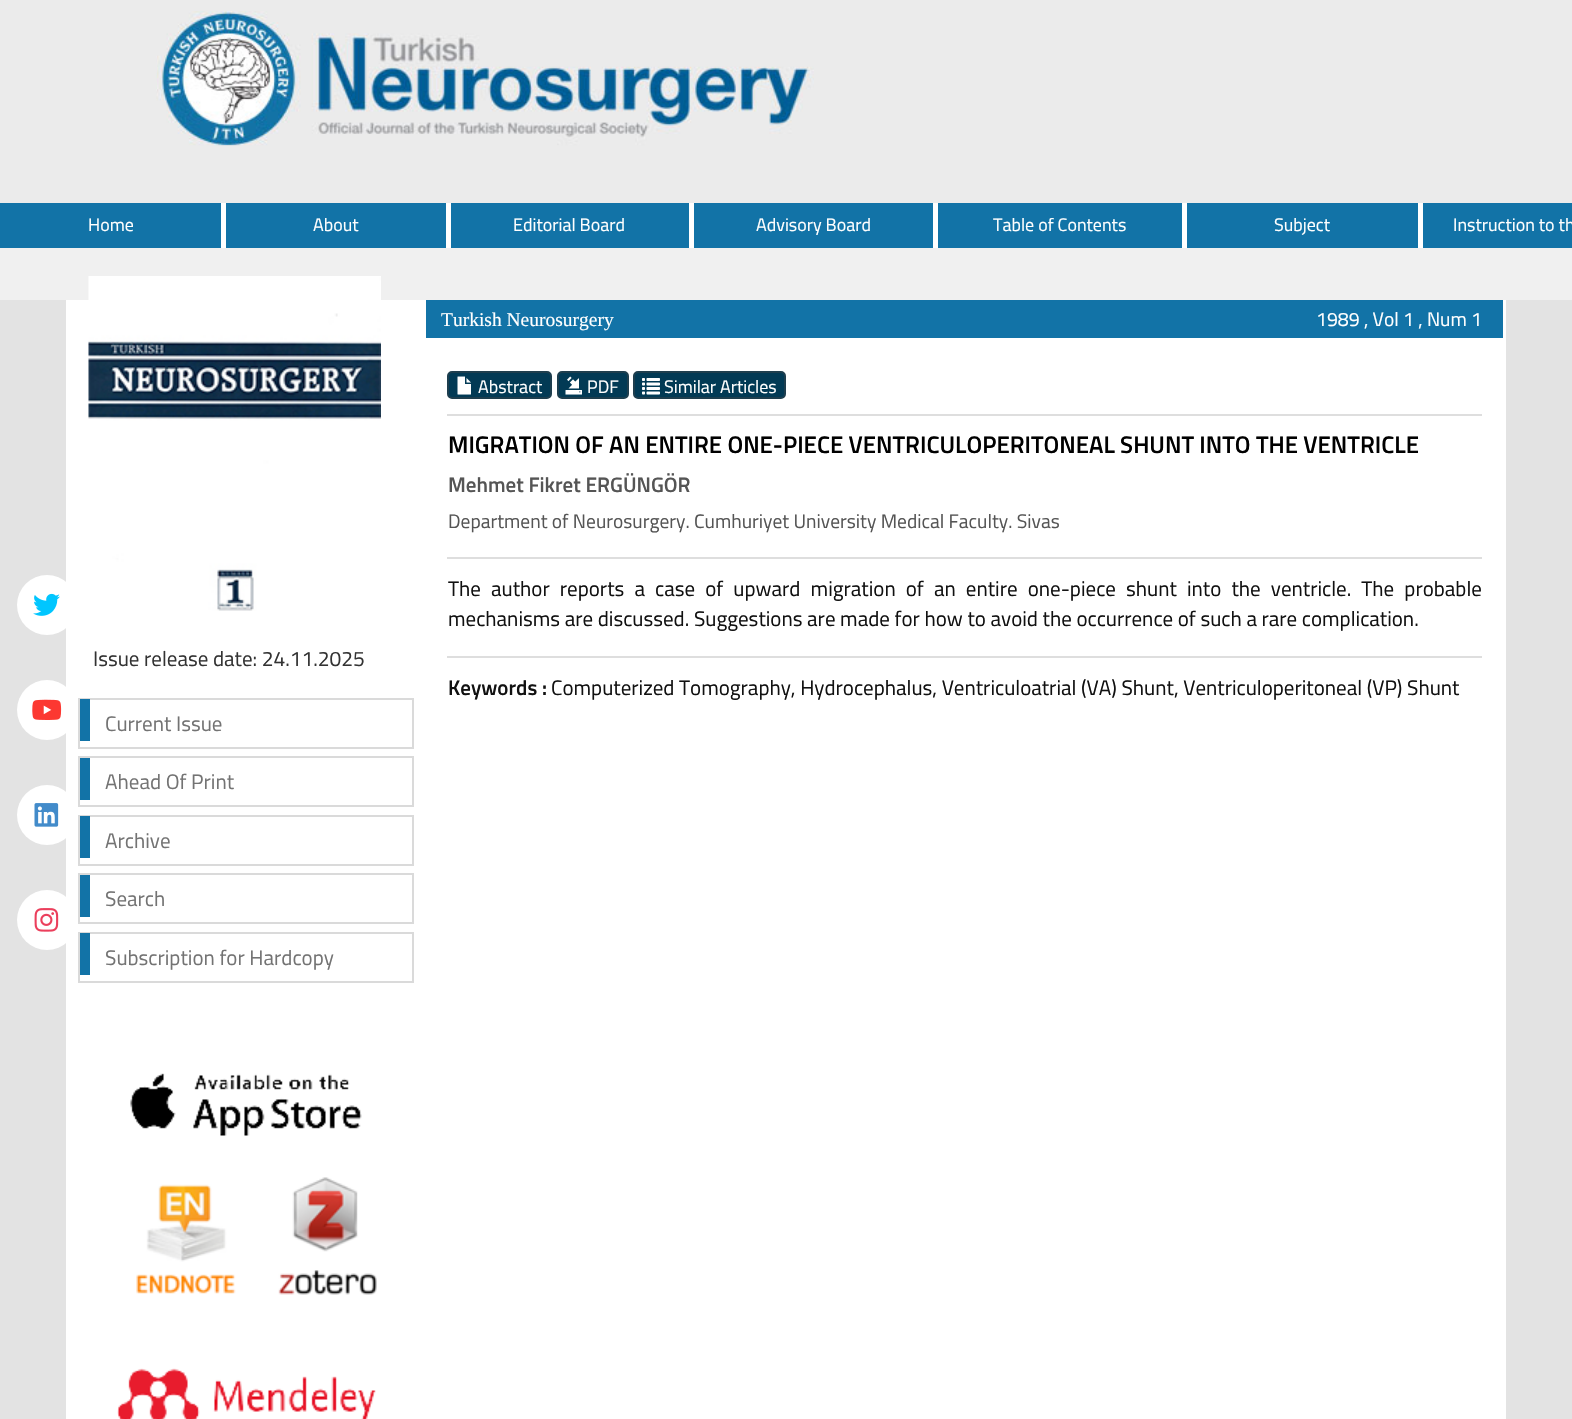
void draw(SkCanvas* canvas) {
    SkPaint paint;
    paint.setAntiAlias(true);
    auto face = [&](const char* family, int weight, float size, bool italic = false) {
        SkFontStyle style(weight, SkFontStyle::kNormal_Width,
            italic ? SkFontStyle::kItalic_Slant : SkFontStyle::kUpright_Slant);
        SkFont result(fontMgr->matchFamilyStyle(family, style), size);
        result.setSubpixel(true);
        return result;
    };
    auto write = [&](const char* s, float x, float y, const SkFont& font, SkColor color) {
        SkPaint ink(SkColor4f::FromColor(color));
        ink.setAntiAlias(true);
        canvas->drawString(s, x, y, font, ink);
    };
    auto writeSpaced = [&](const char* s, float x, float y, const SkFont& font, const SkPaint& ink, float letter, float word) {
        std::vector<SkGlyphID> glyphs(font.countText(s, strlen(s), SkTextEncoding::kUTF8));
        std::vector<float> xs(glyphs.size());
        font.textToGlyphs(s, strlen(s), SkTextEncoding::kUTF8, glyphs);
        font.getXPos(glyphs, xs, x);
        float extra = 0;
        for (size_t i = 0; i < glyphs.size(); i++) {
            xs[i] += extra;
            extra += letter + word * (glyphs[i] == font.unicharToGlyph(' '));
        }
        canvas->drawTextBlob(SkTextBlob::MakeFromPosHGlyphs(glyphs, xs, y, font), 0, 0, ink);
    };
    auto block = [&](float x, float y, float w, float h, SkColor color) {
        SkPaint ink(SkColor4f::FromColor(color));
        ink.setAntiAlias(true);
        canvas->drawRect(SkRect::MakeXYWH(x, y, w, h), ink);
    };
    auto paste = [&](const char* path, float x, float y, float w, float h) {
        auto image = SkImages::DeferredFromEncodedData(SkData::MakeFromFileName(path));
        canvas->drawImageRect(image, SkRect::MakeXYWH(x, y, w, h), SkSamplingOptions());
    };
    canvas->clear(SkColorSetRGB(227, 227, 227));
    block(0, 0, 1572, 203, SkColorSetRGB(235, 235, 235));
    paste("pic1.png", 156, 11, 658, 135);
    block(0, 203, 1572, 45, SkColorSetRGB(18, 115, 167));
    block(221, 203, 5, 45, SK_ColorWHITE);
    auto kFont1 = face("Titillium Web", 400, 18);
    write("Home", 88, 231, kFont1, SK_ColorWHITE);
    block(446, 203, 5, 45, SK_ColorWHITE);
    write("About", 313, 231, kFont1, SK_ColorWHITE);
    block(689, 203, 5, 45, SK_ColorWHITE);
    write("Editorial Board", 513, 231, kFont1, SK_ColorWHITE);
    block(933, 203, 5, 45, SK_ColorWHITE);
    write("Advisory Board", 756, 231, kFont1, SK_ColorWHITE);
    block(1182, 203, 5, 45, SK_ColorWHITE);
    write("Table of Contents", 993, 231, kFont1, SK_ColorWHITE);
    block(1418, 203, 5, 45, SK_ColorWHITE);
    write("Subject", 1274, 231, kFont1, SK_ColorWHITE);
    write("Instruction to th", 1453, 231, kFont1, SK_ColorWHITE);
    block(0, 248, 1572, 52, SkColorSetRGB(240, 240, 240));
    block(66, 300, 1440, 1119, SK_ColorWHITE);
    paint.setColor(SK_ColorWHITE);
    canvas->drawCircle(47, 605, 30, paint);
    paste("pic2.png", 33, 593, 27, 23);
    canvas->drawCircle(47, 710, 30, paint);
    paste("pic3.png", 32, 699, 30, 21);
    canvas->drawCircle(47, 815, 30, paint);
    paste("pic4.png", 34, 803, 25, 24);
    canvas->drawCircle(47, 920, 30, paint);
    paste("pic5.png", 34, 908, 25, 24);
    block(426, 300, 1077, 38, SkColorSetRGB(18, 115, 167));
    auto kFont2 = face("Liberation Serif", 400, 19.5f);
    write("Turkish Neurosurgery", 441, 326, kFont2, SK_ColorWHITE);
    auto kFont3 = face("Titillium Web", 400, 19.5f);
    write("1989 , Vol 1 , Num 1", 1316, 326, kFont3, SK_ColorWHITE);
    paint.setColor(SkColorSetRGB(2, 58, 85));
    canvas->drawRoundRect(SkRect::MakeXYWH(448, 372, 103, 26), 4, 4, paint);
    paint.setStyle(SkPaint::kStroke_Style);
    paint.setStrokeWidth(2);
    paint.setColor(SkColorSetRGB(30, 62, 78));
    canvas->drawRoundRect(SkRect::MakeXYWH(448, 372, 103, 26), 4, 4, paint);
    paste("pic6.png", 457, 376, 14, 19);
    write("Abstract", 478, 393, kFont1, SK_ColorWHITE);
    paint.setStyle(SkPaint::kFill_Style);
    paint.setColor(SkColorSetRGB(2, 58, 85));
    canvas->drawRoundRect(SkRect::MakeXYWH(558, 372, 70, 26), 4, 4, paint);
    paint.setStyle(SkPaint::kStroke_Style);
    paint.setColor(SkColorSetRGB(30, 62, 78));
    canvas->drawRoundRect(SkRect::MakeXYWH(558, 372, 70, 26), 4, 4, paint);
    paste("pic7.png", 565, 376, 17, 19);
    write("PDF", 587, 393, kFont1, SK_ColorWHITE);
    paint.setStyle(SkPaint::kFill_Style);
    paint.setColor(SkColorSetRGB(2, 58, 85));
    canvas->drawRoundRect(SkRect::MakeXYWH(634, 372, 151, 26), 4, 4, paint);
    paint.setStyle(SkPaint::kStroke_Style);
    paint.setColor(SkColorSetRGB(30, 62, 78));
    canvas->drawRoundRect(SkRect::MakeXYWH(634, 372, 151, 26), 4, 4, paint);
    paste("pic8.png", 642, 378, 18, 17);
    write("Similar Articles", 664, 393, kFont1, SK_ColorWHITE);
    block(447, 414, 1035, 2, SkColorSetRGB(222, 222, 222));
    auto kFont4 = face("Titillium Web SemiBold", 600, 24);
    write("MIGRATION OF AN ENTIRE ONE-PIECE VENTRICULOPERITONEAL SHUNT INTO THE VENTRICLE", 448, 453, kFont4, SK_ColorBLACK);
    auto kFont5 = face("Titillium Web SemiBold", 600, 21);
    write("Mehmet Fikret ERGÜNGÖR", 448, 492, kFont5, SkColorSetRGB(85, 85, 85));
    write("Department of Neurosurgery. Cumhuriyet University Medical Faculty. Sivas", 448, 528, kFont3, SkColorSetRGB(85, 85, 85));
    block(447, 557, 1035, 2, SkColorSetRGB(222, 222, 222));
    auto kFont6 = face("Titillium Web", 400, 21);
    paint.setStyle(SkPaint::kFill_Style);
    paint.setColor(SkColorSetRGB(17, 17, 17));
    writeSpaced("The author reports a case of upward migration of an entire one-piece shunt into the ventricle. The probable", 448, 596, kFont6, paint, 0, 5.5f);
    write("mechanisms are discussed. Suggestions are made for how to avoid the occurrence of such a rare complication.", 448, 626, kFont6, SkColorSetRGB(17, 17, 17));
    block(447, 656, 1035, 2, SkColorSetRGB(222, 222, 222));
    write("Keywords :", 448, 695, kFont5, SkColorSetRGB(17, 17, 17));
    write("Computerized Tomography, Hydrocephalus, Ventriculoatrial (VA) Shunt, Ventriculoperitoneal (VP) Shunt", 551, 695, kFont6, SkColorSetRGB(17, 17, 17));
    paste("pic9.png", 88, 276, 293, 335);
    write("Issue release date: 24.11.2025", 93, 666, kFont6, SkColorSetRGB(51, 51, 51));
    paint.setStyle(SkPaint::kStroke_Style);
    paint.setColor(SkColorSetRGB(218, 218, 218));
    canvas->drawRect(SkRect::MakeXYWH(79, 699, 334, 49), paint);
    block(80, 699, 10, 42, SkColorSetRGB(18, 115, 167));
    write("Current Issue", 105, 731, kFont6, SkColorSetRGB(115, 115, 115));
    canvas->drawRect(SkRect::MakeXYWH(79, 757, 334, 49), paint);
    block(80, 758, 10, 42, SkColorSetRGB(18, 115, 167));
    write("Ahead Of Print", 105, 789, kFont6, SkColorSetRGB(115, 115, 115));
    canvas->drawRect(SkRect::MakeXYWH(79, 816, 334, 49), paint);
    block(80, 816, 10, 42, SkColorSetRGB(18, 115, 167));
    write("Archive", 105, 848, kFont6, SkColorSetRGB(115, 115, 115));
    canvas->drawRect(SkRect::MakeXYWH(79, 874, 334, 49), paint);
    block(80, 875, 10, 42, SkColorSetRGB(18, 115, 167));
    write("Search", 105, 906, kFont6, SkColorSetRGB(115, 115, 115));
    canvas->drawRect(SkRect::MakeXYWH(79, 933, 334, 49), paint);
    block(80, 933, 10, 42, SkColorSetRGB(18, 115, 167));
    write("Subscription for Hardcopy", 105, 965, kFont6, SkColorSetRGB(115, 115, 115));
    paste("pic10.png", 130, 1073, 232, 63);
    paste("pic11.png", 136, 1184, 100, 110);
    paste("pic12.png", 278, 1177, 99, 118);
    paste("pic13.png", 117, 1368, 259, 51);
}
